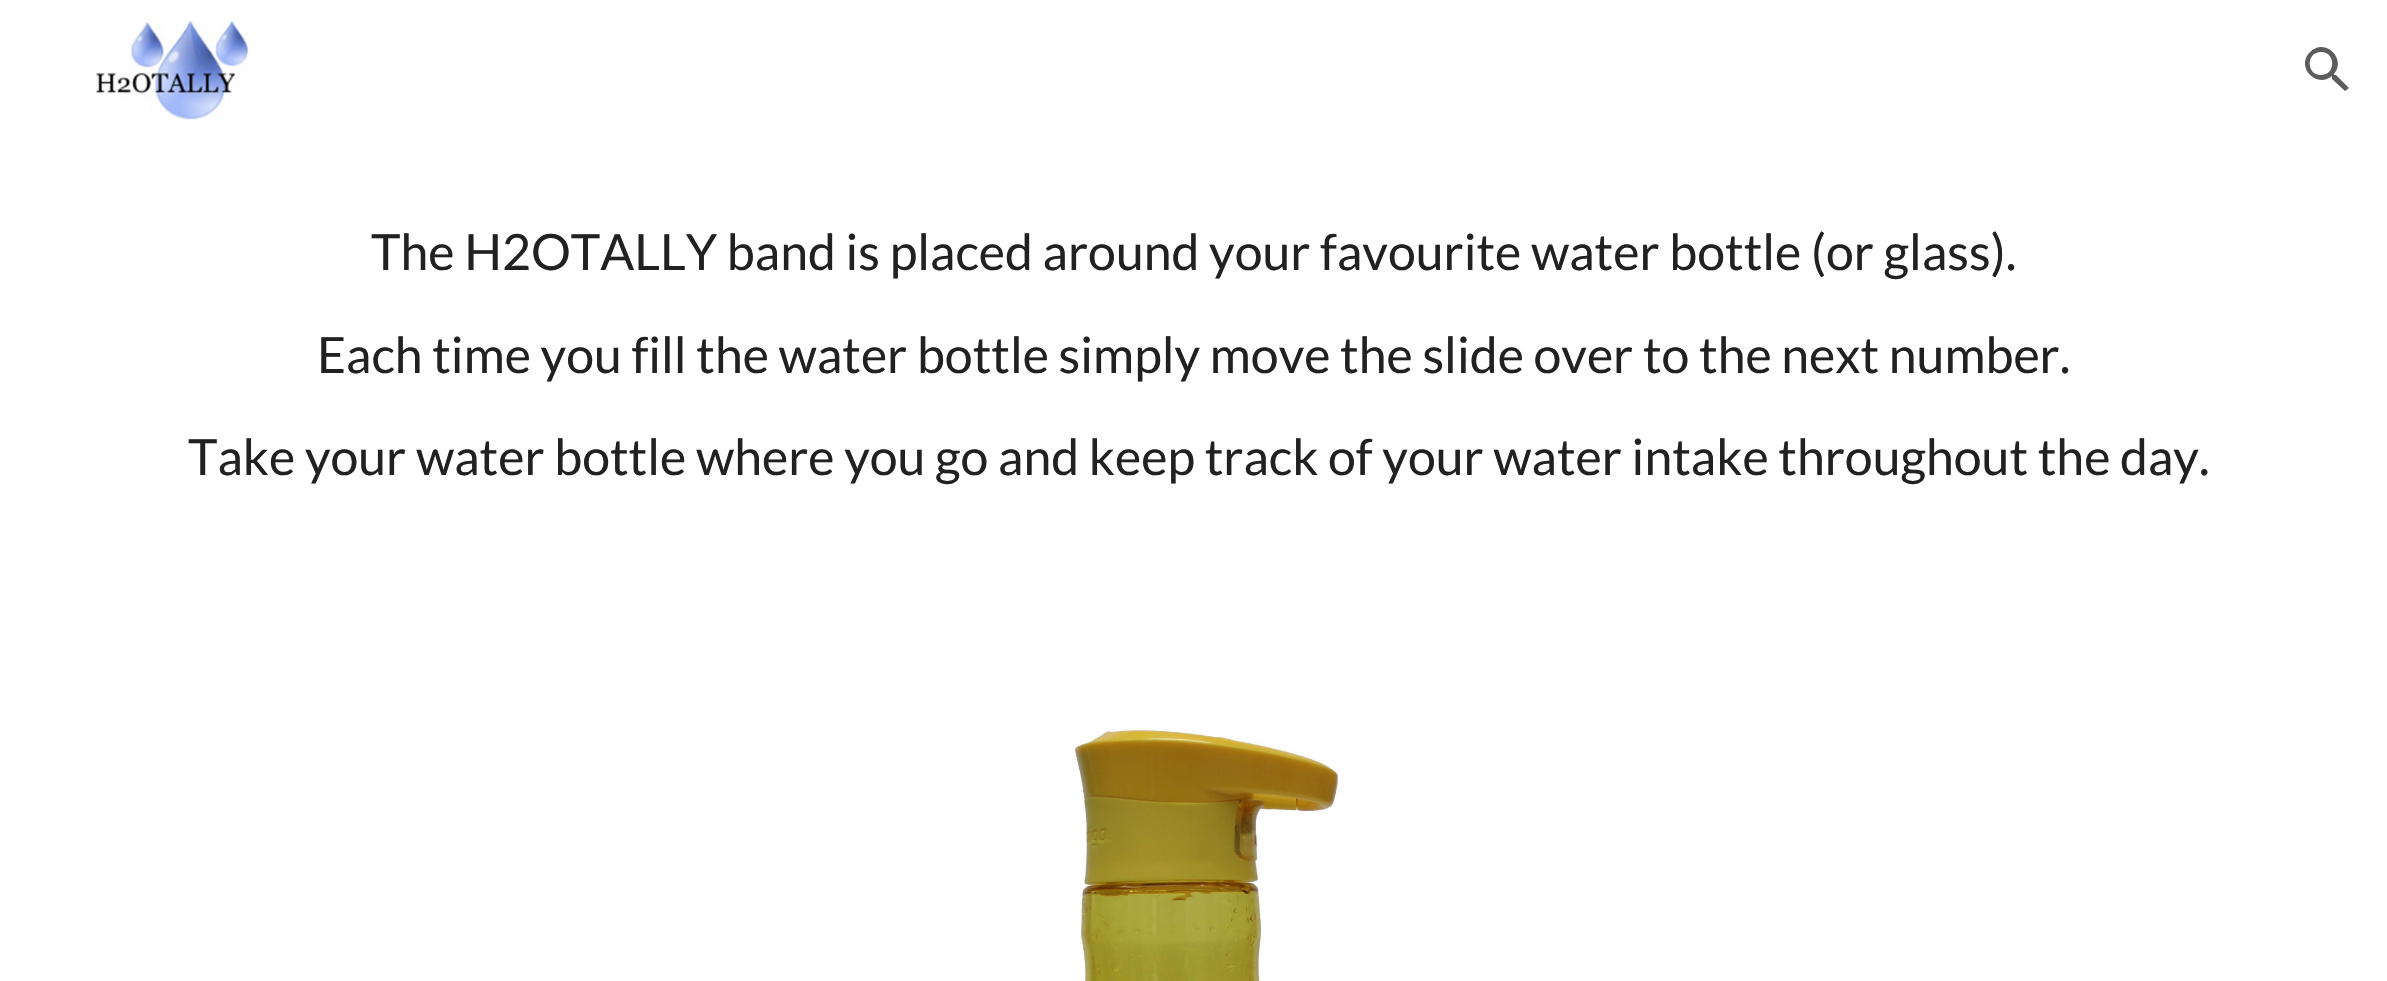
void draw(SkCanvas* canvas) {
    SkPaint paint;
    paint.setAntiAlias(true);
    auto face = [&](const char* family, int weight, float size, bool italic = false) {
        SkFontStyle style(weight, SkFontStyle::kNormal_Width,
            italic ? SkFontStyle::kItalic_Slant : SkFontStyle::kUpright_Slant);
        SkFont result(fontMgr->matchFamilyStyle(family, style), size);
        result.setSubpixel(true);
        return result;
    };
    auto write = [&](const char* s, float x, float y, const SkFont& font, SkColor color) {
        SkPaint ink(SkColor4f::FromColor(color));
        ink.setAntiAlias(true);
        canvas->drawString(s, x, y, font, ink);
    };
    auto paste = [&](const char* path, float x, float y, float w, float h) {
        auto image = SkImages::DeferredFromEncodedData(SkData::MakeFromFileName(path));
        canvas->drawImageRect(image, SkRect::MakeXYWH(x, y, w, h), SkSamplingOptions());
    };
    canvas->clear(SK_ColorWHITE);
    paste("pic1.png", 95, 20, 154, 100);
    paint.setColor(SkColorSetRGB(92, 92, 92));
    canvas->drawPath(SkPathBuilder().moveTo(2336, 75).lineTo(2334, 75).lineTo(2334, 74).cubicTo(2347, 59, 2325, 37, 2310, 52).cubicTo(2295, 67, 2317, 89, 2332, 76).lineTo(2332, 77).lineTo(2332, 79).lineTo(2345, 91).lineTo(2349, 88).close().moveTo(2321, 75).cubicTo(2306, 75, 2306, 52, 2321, 52).cubicTo(2336, 52, 2336, 75, 2321, 75).close().detach(), paint);
    auto kFont1 = face("Lato", 400, 50);
    write("The H2OTALLY band is placed around your favourite water bottle (or glass).", 371, 270, kFont1, SkColorSetRGB(33, 33, 33));
    write("Each time you fill the water bottle simply move the slide over to the next number.", 317, 373, kFont1, SkColorSetRGB(33, 33, 33));
    write("Take your water bottle where you go and keep track of your water intake throughout the day.", 188, 475, kFont1, SkColorSetRGB(33, 33, 33));
    paste("pic2.png", 1074, 728, 265, 253);
}
